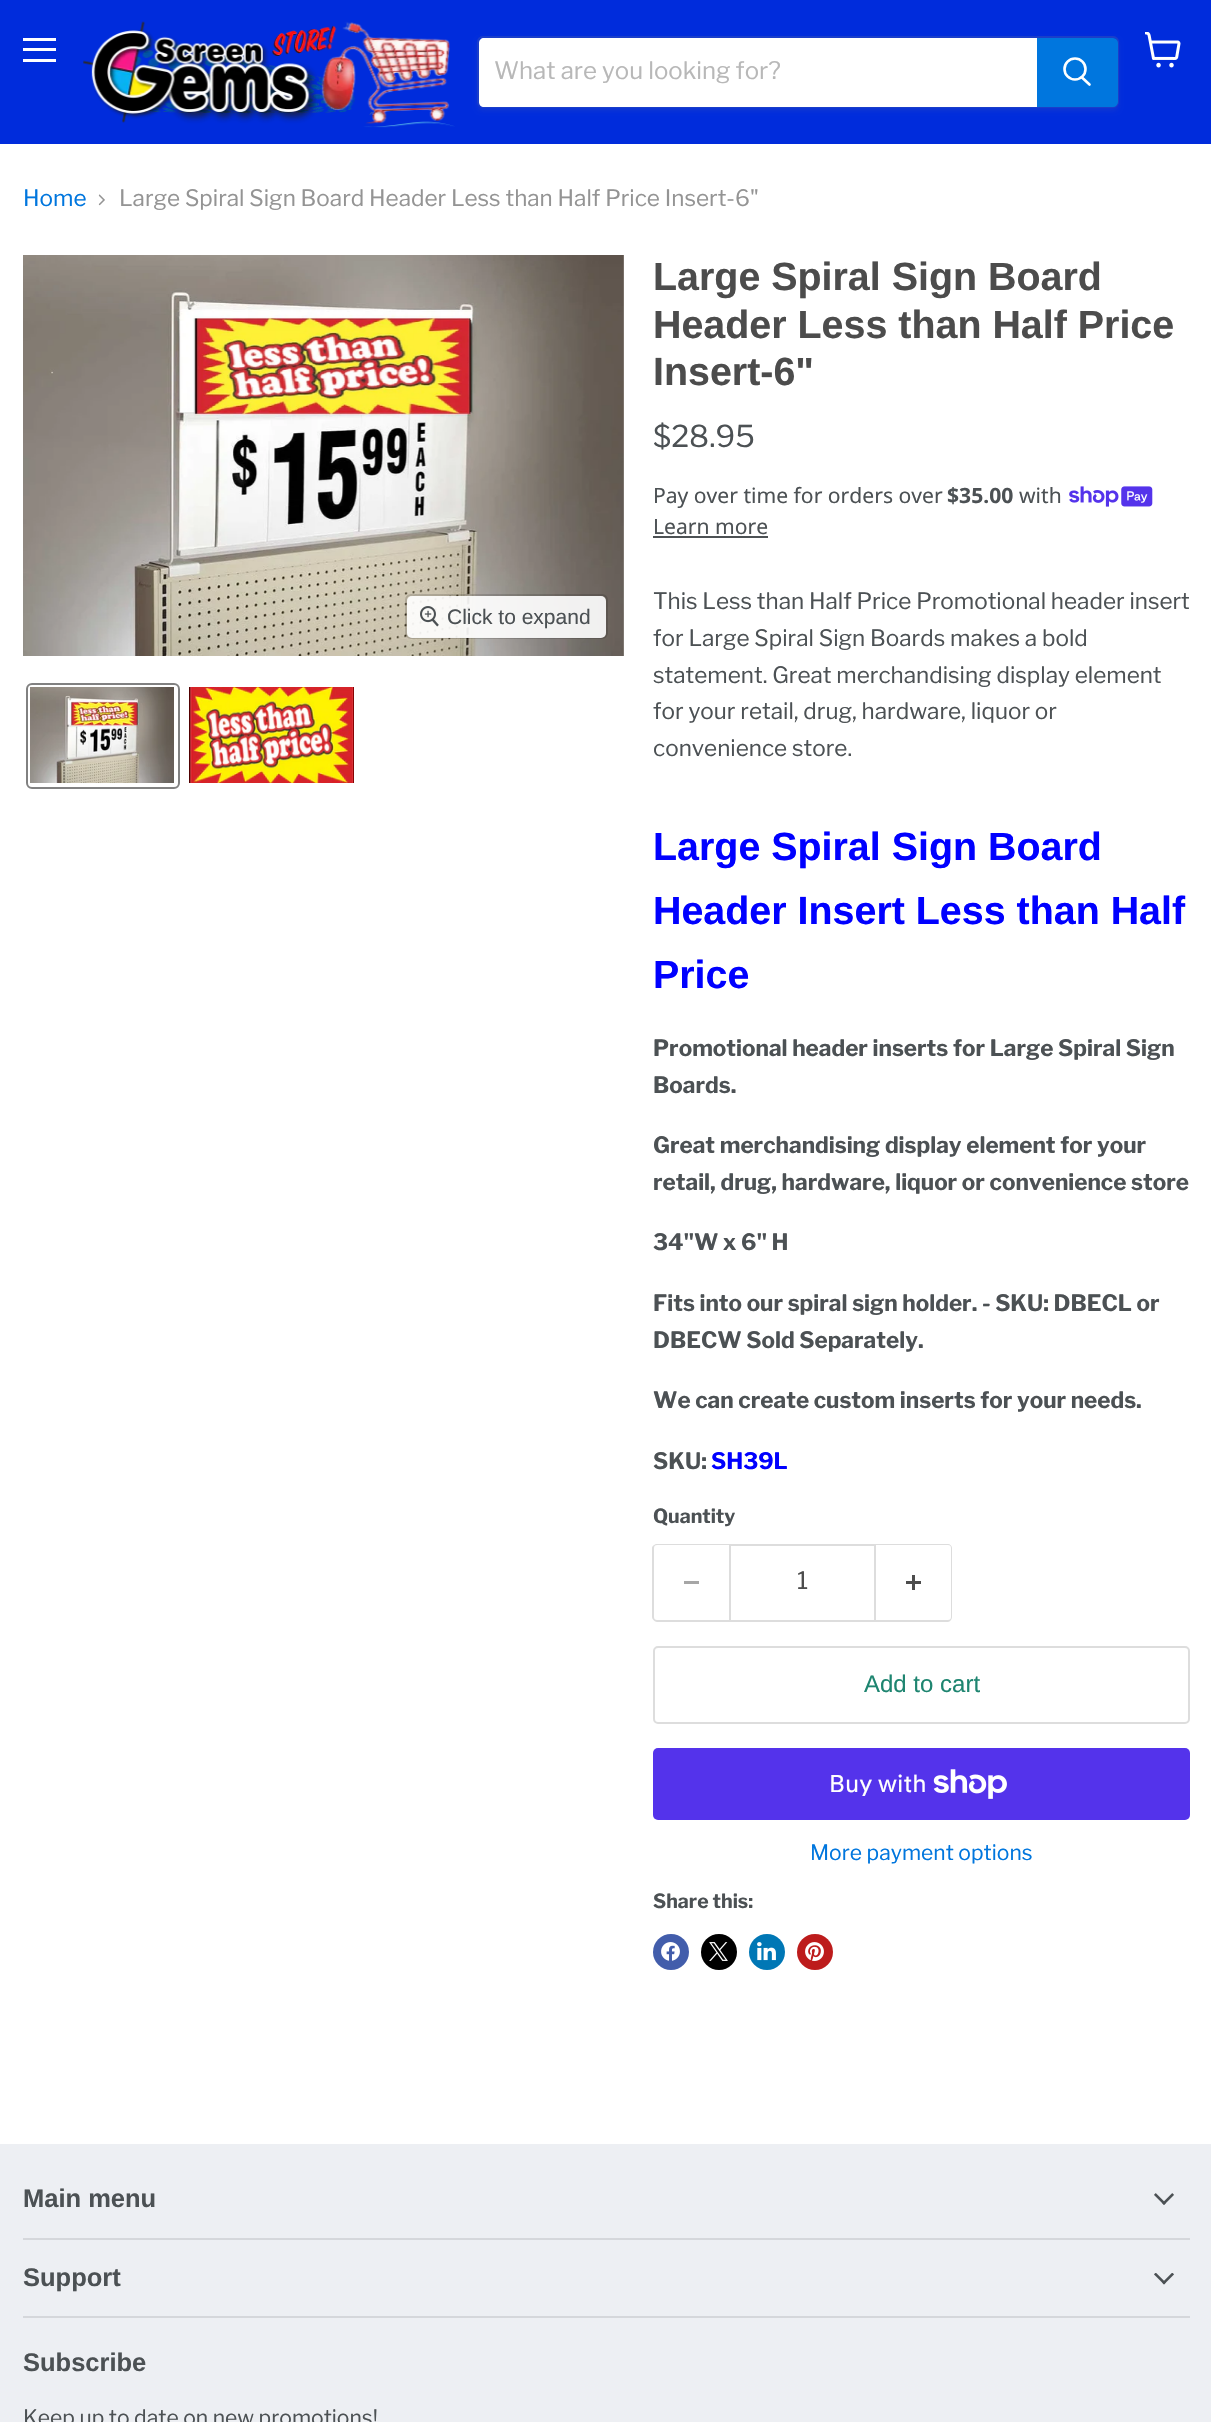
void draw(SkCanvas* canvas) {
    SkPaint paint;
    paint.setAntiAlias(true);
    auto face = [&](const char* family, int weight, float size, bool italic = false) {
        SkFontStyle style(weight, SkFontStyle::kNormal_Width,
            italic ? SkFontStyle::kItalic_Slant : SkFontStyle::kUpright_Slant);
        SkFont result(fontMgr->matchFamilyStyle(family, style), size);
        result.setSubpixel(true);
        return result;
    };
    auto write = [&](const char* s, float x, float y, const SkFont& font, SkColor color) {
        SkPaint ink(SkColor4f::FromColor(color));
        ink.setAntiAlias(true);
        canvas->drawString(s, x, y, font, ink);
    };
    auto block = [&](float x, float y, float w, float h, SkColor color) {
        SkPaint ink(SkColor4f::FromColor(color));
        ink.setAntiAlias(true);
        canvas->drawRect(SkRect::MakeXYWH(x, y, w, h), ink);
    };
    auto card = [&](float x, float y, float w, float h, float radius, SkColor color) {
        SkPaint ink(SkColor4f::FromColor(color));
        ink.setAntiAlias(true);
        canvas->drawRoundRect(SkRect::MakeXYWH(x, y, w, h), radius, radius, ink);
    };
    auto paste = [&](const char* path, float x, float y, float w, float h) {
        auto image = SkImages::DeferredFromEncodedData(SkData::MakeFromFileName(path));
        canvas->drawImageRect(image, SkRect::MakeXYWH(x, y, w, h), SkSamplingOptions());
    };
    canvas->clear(SK_ColorWHITE);
    block(0, 0, 1211, 144, SkColorSetRGB(0, 44, 220));
    block(23, 38, 33, 3, SK_ColorWHITE);
    block(23, 48, 33, 3, SK_ColorWHITE);
    block(23, 59, 33, 3, SK_ColorWHITE);
    paste("pic1.png", 1145, 32, 36, 36);
    paste("pic2.png", 83, 21, 372, 107);
    canvas->save();
    canvas->clipPath(SkPathBuilder(SkPathFillType::kEvenOdd).moveTo(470, 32).lineTo(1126, 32).lineTo(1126, 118).lineTo(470, 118).close().moveTo(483, 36).lineTo(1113, 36).cubicTo(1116.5f, 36, 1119, 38.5f, 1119, 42).lineTo(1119, 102).cubicTo(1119, 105.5f, 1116.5f, 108, 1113, 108).lineTo(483, 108).cubicTo(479.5f, 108, 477, 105.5f, 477, 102).lineTo(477, 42).cubicTo(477, 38.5f, 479.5f, 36, 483, 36).close().detach(), true);
    paint.setColor(SkColorSetARGB(28, 128, 128, 128));
    paint.setMaskFilter(SkMaskFilter::MakeBlur(kNormal_SkBlurStyle, 2));
    canvas->drawRoundRect(SkRect::MakeXYWH(477, 39, 642, 72), 6, 6, paint);
    paint.setMaskFilter(nullptr);
    canvas->restore();
    paint.setStyle(SkPaint::kStroke_Style);
    paint.setStrokeWidth(2);
    paint.setColor(SkColorSetARGB(51, 128, 128, 128));
    canvas->drawRoundRect(SkRect::MakeXYWH(478, 37, 640, 70), 5, 5, paint);
    paint.setStyle(SkPaint::kFill_Style);
    paint.setColor(SK_ColorWHITE);
    canvas->drawPath(SkPathBuilder().moveTo(484, 38).lineTo(1037, 38).lineTo(1037, 107).lineTo(484, 107).cubicTo(481, 107, 479, 105, 479, 102).lineTo(479, 43).cubicTo(479, 40, 481, 38, 484, 38).close().detach(), paint);
    auto kFont1 = face("Libre Franklin", 400, 24);
    write("What are you looking for?", 494, 79, kFont1, SkColorSetRGB(184, 184, 184));
    paint.setColor(SkColorSetRGB(0, 118, 222));
    canvas->drawPath(SkPathBuilder().moveTo(1038, 39).lineTo(1113, 39).cubicTo(1115, 39, 1117, 41, 1117, 43).lineTo(1117, 102).cubicTo(1117, 104, 1115, 106, 1113, 106).lineTo(1038, 106).close().detach(), paint);
    paint.setStyle(SkPaint::kStroke_Style);
    canvas->drawPath(SkPathBuilder().moveTo(1038, 39).lineTo(1113, 39).cubicTo(1115, 39, 1117, 41, 1117, 43).lineTo(1117, 102).cubicTo(1117, 104, 1115, 106, 1113, 106).lineTo(1038, 106).close().detach(), paint);
    paint.setStrokeWidth(2.6f);
    paint.setStrokeCap(SkPaint::kRound_Cap);
    paint.setColor(SK_ColorWHITE);
    canvas->drawPath(SkPathBuilder().moveTo(1089.5f, 84.5f).lineTo(1082, 77.5f).detach(), paint);
    paint.setStrokeCap(SkPaint::kButt_Cap);
    canvas->drawCircle(1075, 69, 10.5f, paint);
    auto kFont2 = face("Libre Franklin", 400, 22.5f);
    write("Home", 23, 206, kFont2, SkColorSetRGB(0, 118, 222));
    paste("pic3.png", 98, 194, 7, 12);
    write("Large Spiral Sign Board Header Less than Half Price Insert-6\"", 119, 206, kFont2, SkColorSetRGB(148, 148, 148));
    paste("pic4.png", 23, 255, 601, 401);
    paint.setStrokeWidth(2);
    paint.setColor(SkColorSetARGB(38, 0, 0, 0));
    canvas->drawRoundRect(SkRect::MakeXYWH(406, 595, 201, 43), 5, 5, paint);
    card(407, 596, 199, 42, 5, SkColorSetARGB(230, 255, 255, 255));
    paste("pic5.png", 420, 606, 19, 21);
    auto kFont3 = face("Liberation Sans", 400, 21);
    write("Click to expand", 447, 624, kFont3, SkColorSetRGB(76, 81, 84));
    paint.setColor(SkColorSetRGB(129, 129, 129));
    canvas->drawRoundRect(SkRect::MakeXYWH(27, 684, 152, 104), 5, 5, paint);
    paste("pic6.png", 30, 687, 144, 96);
    paste("pic7.png", 189, 687, 165, 96);
    auto kFont4 = face("Arimo", 700, 39.4f);
    write("Large Spiral Sign Board", 653, 290, kFont4, SkColorSetRGB(76, 76, 76));
    write("Header Less than Half Price", 653, 338, kFont4, SkColorSetRGB(76, 76, 76));
    write("Insert-6\"", 653, 385, kFont4, SkColorSetRGB(76, 76, 76));
    auto kFont5 = face("Libre Franklin", 400, 30);
    write("$28.95", 653, 447, kFont5, SkColorSetRGB(76, 81, 84));
    auto kFont6 = face("Noto Sans", 400, 21.1f);
    write("Pay over time for orders over", 653, 503, kFont6, SkColorSetRGB(76, 81, 84));
    auto kFont7 = face("Noto Sans", 700, 21.1f);
    write("$35.00", 947, 503, kFont7, SkColorSetRGB(76, 81, 84));
    write("with", 1019, 503, kFont6, SkColorSetRGB(76, 81, 84));
    paste("pic8.png", 1069, 486, 84, 21);
    write("Learn more", 653, 534, kFont6, SkColorSetRGB(76, 81, 84));
    block(653, 536, 115, 2, SkColorSetRGB(76, 81, 84));
    write("This Less than Half Price Promotional header insert", 653, 609, kFont2, SkColorSetRGB(76, 81, 84));
    write("for Large Spiral Sign Boards makes a bold", 653, 646, kFont2, SkColorSetRGB(76, 81, 84));
    write("statement. Great merchandising display element", 653, 683, kFont2, SkColorSetRGB(76, 81, 84));
    write("for your retail, drug, hardware, liquor or", 653, 719, kFont2, SkColorSetRGB(76, 81, 84));
    write("convenience store.", 653, 756, kFont2, SkColorSetRGB(76, 81, 84));
    write("Large Spiral Sign Board", 653, 860, kFont4, SkColorSetRGB(0, 0, 255));
    write("Header Insert Less than Half", 653, 924, kFont4, SkColorSetRGB(0, 0, 255));
    write("Price", 653, 988, kFont4, SkColorSetRGB(0, 0, 255));
    auto kFont8 = face("Libre Franklin", 700, 22.5f);
    write("Promotional header inserts for Large Spiral Sign", 653, 1056, kFont8, SkColorSetRGB(76, 81, 84));
    write("Boards.", 653, 1093, kFont8, SkColorSetRGB(76, 81, 84));
    write("Great merchandising display element for your", 653, 1153, kFont8, SkColorSetRGB(76, 81, 84));
    write("retail, drug, hardware, liquor or convenience store", 653, 1190, kFont8, SkColorSetRGB(76, 81, 84));
    write("34\"W x 6\" H", 653, 1250, kFont8, SkColorSetRGB(76, 81, 84));
    write("Fits into our spiral sign holder. - SKU: DBECL or", 653, 1311, kFont8, SkColorSetRGB(76, 81, 84));
    write("DBECW Sold Separately.", 653, 1348, kFont8, SkColorSetRGB(76, 81, 84));
    write("We can create custom inserts for your needs.", 653, 1408, kFont8, SkColorSetRGB(76, 81, 84));
    write("SKU:", 653, 1469, kFont8, SkColorSetRGB(76, 81, 84));
    write("SH39L", 711, 1469, kFont8, SkColorSetRGB(0, 0, 255));
    auto kFont9 = face("Libre Franklin", 700, 19.5f);
    write("Quantity", 653, 1523, kFont9, SkColorSetRGB(76, 81, 84));
    paint.setStyle(SkPaint::kFill_Style);
    paint.setColor(SkColorSetRGB(221, 221, 221));
    canvas->drawPath(SkPathBuilder(SkPathFillType::kEvenOdd).moveTo(657, 1544).lineTo(729, 1544).lineTo(729, 1622).lineTo(657, 1622).cubicTo(655, 1622, 652, 1619, 652, 1617).lineTo(652, 1548).cubicTo(652, 1546, 655, 1544, 657, 1544).close().moveTo(657, 1545).lineTo(729, 1545).lineTo(729, 1620).lineTo(657, 1620).cubicTo(655, 1620, 654, 1619, 654, 1617).lineTo(654, 1548).cubicTo(654, 1546, 655, 1545, 657, 1545).close().detach(), paint);
    block(684, 1581, 15, 3, SkColorSetRGB(166, 166, 166));
    paint.setStyle(SkPaint::kStroke_Style);
    canvas->drawRect(SkRect::MakeXYWH(730, 1545, 145, 76), paint);
    write("1", 797, 1589, kFont1, SkColorSetRGB(76, 76, 76));
    paint.setStyle(SkPaint::kFill_Style);
    canvas->drawPath(SkPathBuilder(SkPathFillType::kEvenOdd).moveTo(876, 1544).lineTo(948, 1544).cubicTo(950, 1544, 952, 1546, 952, 1548).lineTo(952, 1617).cubicTo(952, 1619, 950, 1622, 948, 1622).lineTo(876, 1622).close().moveTo(876, 1545).lineTo(948, 1545).cubicTo(950, 1545, 951, 1546, 951, 1548).lineTo(951, 1617).cubicTo(951, 1619, 950, 1620, 948, 1620).lineTo(876, 1620).close().detach(), paint);
    paste("pic9.png", 906, 1575, 15, 15);
    paint.setStyle(SkPaint::kStroke_Style);
    canvas->drawRoundRect(SkRect::MakeXYWH(654, 1647, 535, 76), 4, 4, paint);
    auto kFont10 = face("Liberation Sans", 400, 24);
    write("Add to cart", 864, 1692, kFont10, SkColorSetRGB(30, 133, 112));
    card(653, 1748, 537, 72, 5, SkColorSetRGB(84, 51, 235));
    auto kFont11 = face("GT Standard", 400, 24);
    write("Buy with", 829, 1792, kFont11, SK_ColorWHITE);
    paste("pic10.png", 933, 1769, 74, 30);
    auto kFont12 = face("Libre Franklin", 400, 21.1f);
    write("More payment options", 810, 1860, kFont12, SkColorSetRGB(0, 118, 222));
    write("Share this:", 653, 1908, kFont9, SkColorSetRGB(76, 81, 84));
    paint.setStyle(SkPaint::kFill_Style);
    paint.setColor(SkColorSetRGB(66, 93, 171));
    canvas->drawCircle(671, 1952, 18, paint);
    paste("pic11.png", 661, 1942, 19, 19);
    paint.setColor(SK_ColorBLACK);
    canvas->drawCircle(719, 1952, 18, paint);
    paste("pic12.png", 709, 1942, 19, 19);
    paint.setColor(SkColorSetRGB(0, 119, 181));
    canvas->drawCircle(767, 1952, 18, paint);
    paste("pic13.png", 757, 1942, 19, 19);
    paint.setColor(SkColorSetRGB(189, 28, 28));
    canvas->drawCircle(815, 1952, 18, paint);
    paste("pic14.png", 805, 1942, 19, 19);
    block(0, 2144, 1211, 278, SkColorSetRGB(237, 239, 243));
    block(23, 2238, 1167, 2, SkColorSetRGB(213, 215, 219));
    auto kFont13 = face("Arimo", 700, 25.5f);
    write("Main menu", 23, 2207, kFont13, SkColorSetRGB(76, 81, 84));
    paste("pic15.png", 1154, 2193, 20, 12);
    block(23, 2316, 1167, 2, SkColorSetRGB(213, 215, 219));
    write("Support", 23, 2286, kFont13, SkColorSetRGB(76, 81, 84));
    paste("pic16.png", 1154, 2273, 20, 12);
    write("Subscribe", 23, 2371, kFont13, SkColorSetRGB(76, 81, 84));
    write("Keep up to date on new promotions!", 23, 2425, kFont12, SkColorSetRGB(76, 81, 84));
}
